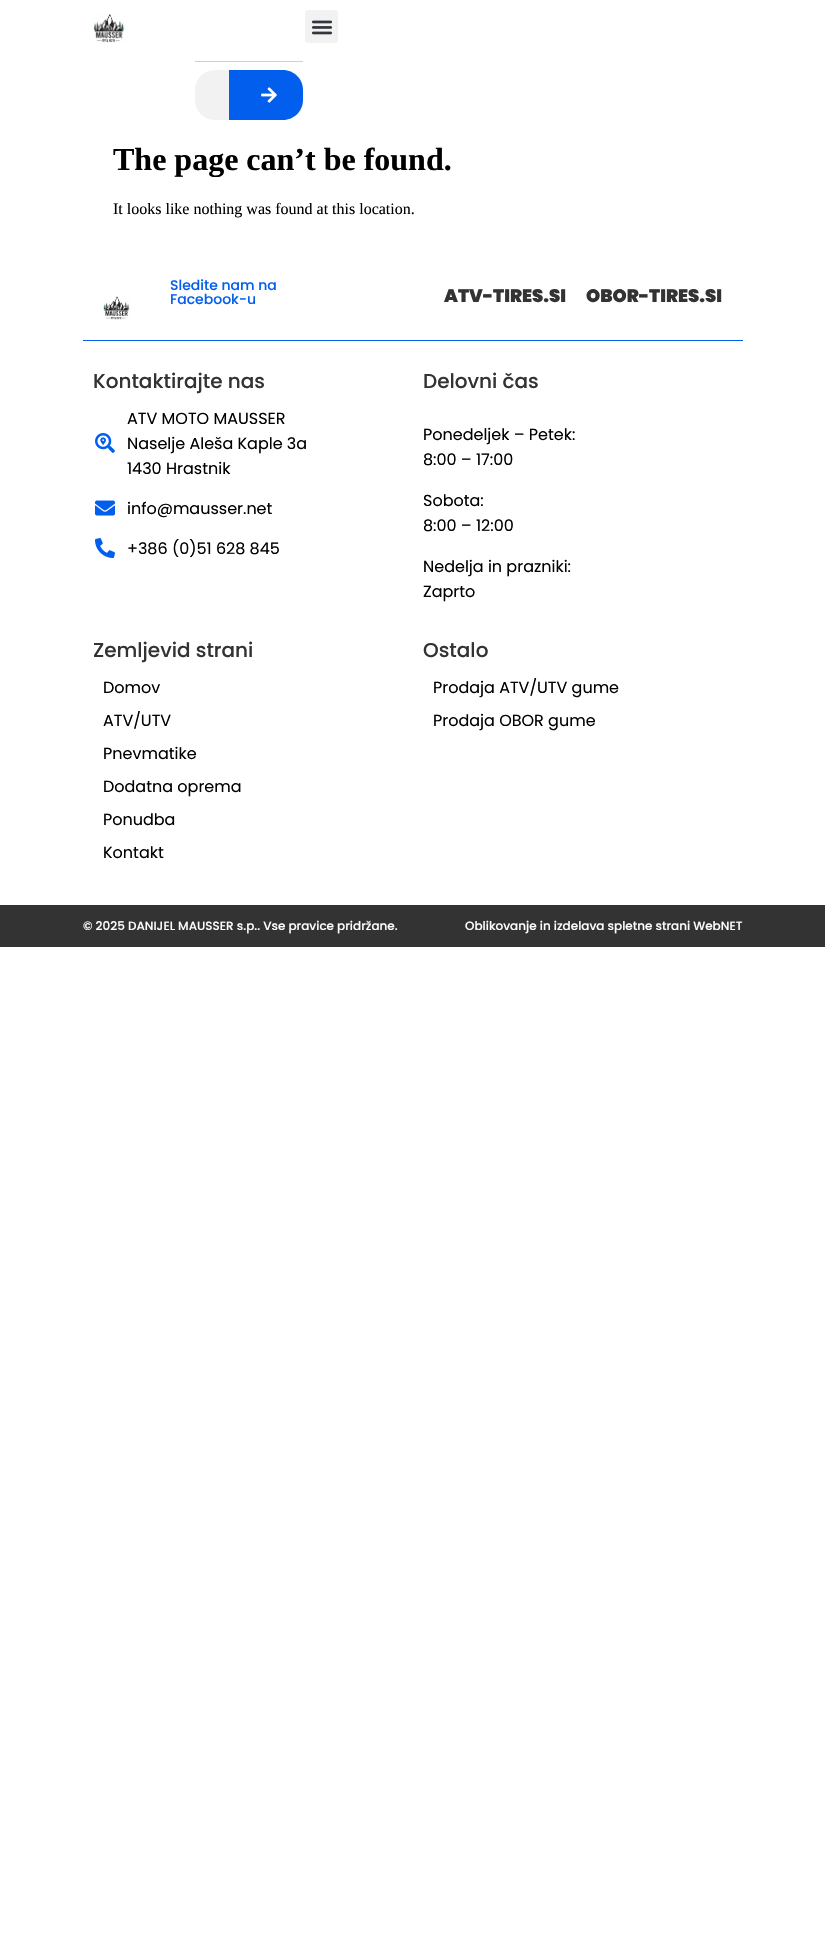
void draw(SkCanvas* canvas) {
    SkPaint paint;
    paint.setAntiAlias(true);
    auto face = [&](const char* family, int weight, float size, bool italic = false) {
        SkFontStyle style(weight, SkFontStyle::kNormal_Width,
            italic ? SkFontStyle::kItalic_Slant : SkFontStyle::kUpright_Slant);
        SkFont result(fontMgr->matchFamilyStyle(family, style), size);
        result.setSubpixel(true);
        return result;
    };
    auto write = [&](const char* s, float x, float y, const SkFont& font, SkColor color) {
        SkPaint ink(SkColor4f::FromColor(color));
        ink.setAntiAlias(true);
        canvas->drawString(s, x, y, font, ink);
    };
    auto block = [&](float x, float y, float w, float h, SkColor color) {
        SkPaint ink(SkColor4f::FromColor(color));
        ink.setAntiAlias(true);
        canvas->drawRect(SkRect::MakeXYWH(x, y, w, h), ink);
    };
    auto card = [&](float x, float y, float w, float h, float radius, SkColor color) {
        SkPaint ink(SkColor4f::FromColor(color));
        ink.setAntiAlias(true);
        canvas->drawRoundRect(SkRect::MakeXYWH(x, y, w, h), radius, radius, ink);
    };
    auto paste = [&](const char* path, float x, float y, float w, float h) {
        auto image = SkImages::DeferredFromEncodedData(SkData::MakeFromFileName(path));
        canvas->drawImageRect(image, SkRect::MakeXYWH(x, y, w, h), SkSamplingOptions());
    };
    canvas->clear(SK_ColorWHITE);
    paste("pic1.png", 93, 13, 32, 30);
    card(305, 10, 33, 33, 3, SkColorSetRGB(242, 242, 242));
    paste("pic2.png", 311, 20, 22, 15);
    block(195, 61, 108, 1, SkColorSetRGB(208, 209, 211));
    card(195, 70, 108, 50, 20, SkColorSetRGB(242, 242, 242));
    paint.setColor(SkColorSetRGB(2, 95, 237));
    canvas->drawPath(SkPathBuilder().moveTo(229, 70).lineTo(283, 70).cubicTo(294, 70, 303, 79, 303, 90).lineTo(303, 100).cubicTo(303, 111, 294, 120, 283, 120).lineTo(229, 120).close().detach(), paint);
    paste("pic3.png", 261, 87, 16, 16);
    auto kFont1 = face("Liberation Serif", 700, 32);
    write("The page can’t be found.", 113, 170, kFont1, SK_ColorBLACK);
    auto kFont2 = face("Liberation Serif", 400, 16);
    write("It looks like nothing was found at this location.", 113, 214, kFont2, SK_ColorBLACK);
    block(83, 340, 660, 1, SkColorSetRGB(2, 95, 237));
    auto kFont3 = face("Poppins", 500, 14);
    write("Sledite nam na", 170, 290, kFont3, SkColorSetRGB(2, 95, 237));
    write("Facebook-u", 170, 304, kFont3, SkColorSetRGB(2, 95, 237));
    paste("pic4.png", 103, 296, 27, 24);
    auto kFont4 = face("Poppins", 900, 18);
    write("ATV-TIRES.SI", 444, 302, kFont4, SkColorSetRGB(51, 51, 51));
    write("OBOR-TIRES.SI", 586, 302, kFont4, SkColorSetRGB(51, 51, 51));
    auto kFont5 = face("Poppins", 500, 20);
    write("Kontaktirajte nas", 93, 388, kFont5, SkColorSetRGB(51, 51, 51));
    paste("pic5.png", 95, 433, 20, 20);
    auto kFont6 = face("Poppins", 400, 16);
    write("ATV MOTO MAUSSER", 127, 424, kFont6, SK_ColorBLACK);
    write("Naselje Aleša Kaple 3a", 127, 449, kFont6, SK_ColorBLACK);
    write("1430 Hrastnik", 127, 474, kFont6, SK_ColorBLACK);
    paste("pic6.png", 95, 500, 20, 16);
    write("info@mausser.net", 127, 514, kFont6, SK_ColorBLACK);
    paste("pic7.png", 95, 538, 20, 20);
    write("+386 (0)51 628 845", 127, 554, kFont6, SK_ColorBLACK);
    write("Delovni čas", 423, 388, kFont5, SkColorSetRGB(51, 51, 51));
    write("Ponedeljek – Petek:", 423, 440, kFont6, SK_ColorBLACK);
    write("8:00 – 17:00", 423, 465, kFont6, SK_ColorBLACK);
    write("Sobota:", 423, 506, kFont6, SK_ColorBLACK);
    write("8:00 – 12:00", 423, 531, kFont6, SK_ColorBLACK);
    write("Nedelja in prazniki:", 423, 572, kFont6, SK_ColorBLACK);
    write("Zaprto", 423, 597, kFont6, SK_ColorBLACK);
    write("Zemljevid strani", 93, 657, kFont5, SkColorSetRGB(51, 51, 51));
    write("Domov", 103, 693, kFont6, SK_ColorBLACK);
    write("ATV/UTV", 103, 726, kFont6, SK_ColorBLACK);
    write("Pnevmatike", 103, 759, kFont6, SK_ColorBLACK);
    write("Dodatna oprema", 103, 792, kFont6, SK_ColorBLACK);
    write("Ponudba", 103, 825, kFont6, SK_ColorBLACK);
    write("Kontakt", 103, 858, kFont6, SK_ColorBLACK);
    write("Ostalo", 423, 657, kFont5, SkColorSetRGB(51, 51, 51));
    write("Prodaja ATV/UTV gume", 433, 693, kFont6, SK_ColorBLACK);
    write("Prodaja OBOR gume", 433, 726, kFont6, SK_ColorBLACK);
    block(0, 905, 825, 42, SkColorSetRGB(51, 51, 51));
    auto kFont7 = face("Poppins", 500, 12);
    write("© 2025 DANIJEL MAUSSER s.p.. Vse pravice pridržane.", 83, 930, kFont7, SK_ColorWHITE);
    write("Oblikovanje in izdelava spletne strani WebNET", 465, 930, kFont7, SK_ColorWHITE);
}
